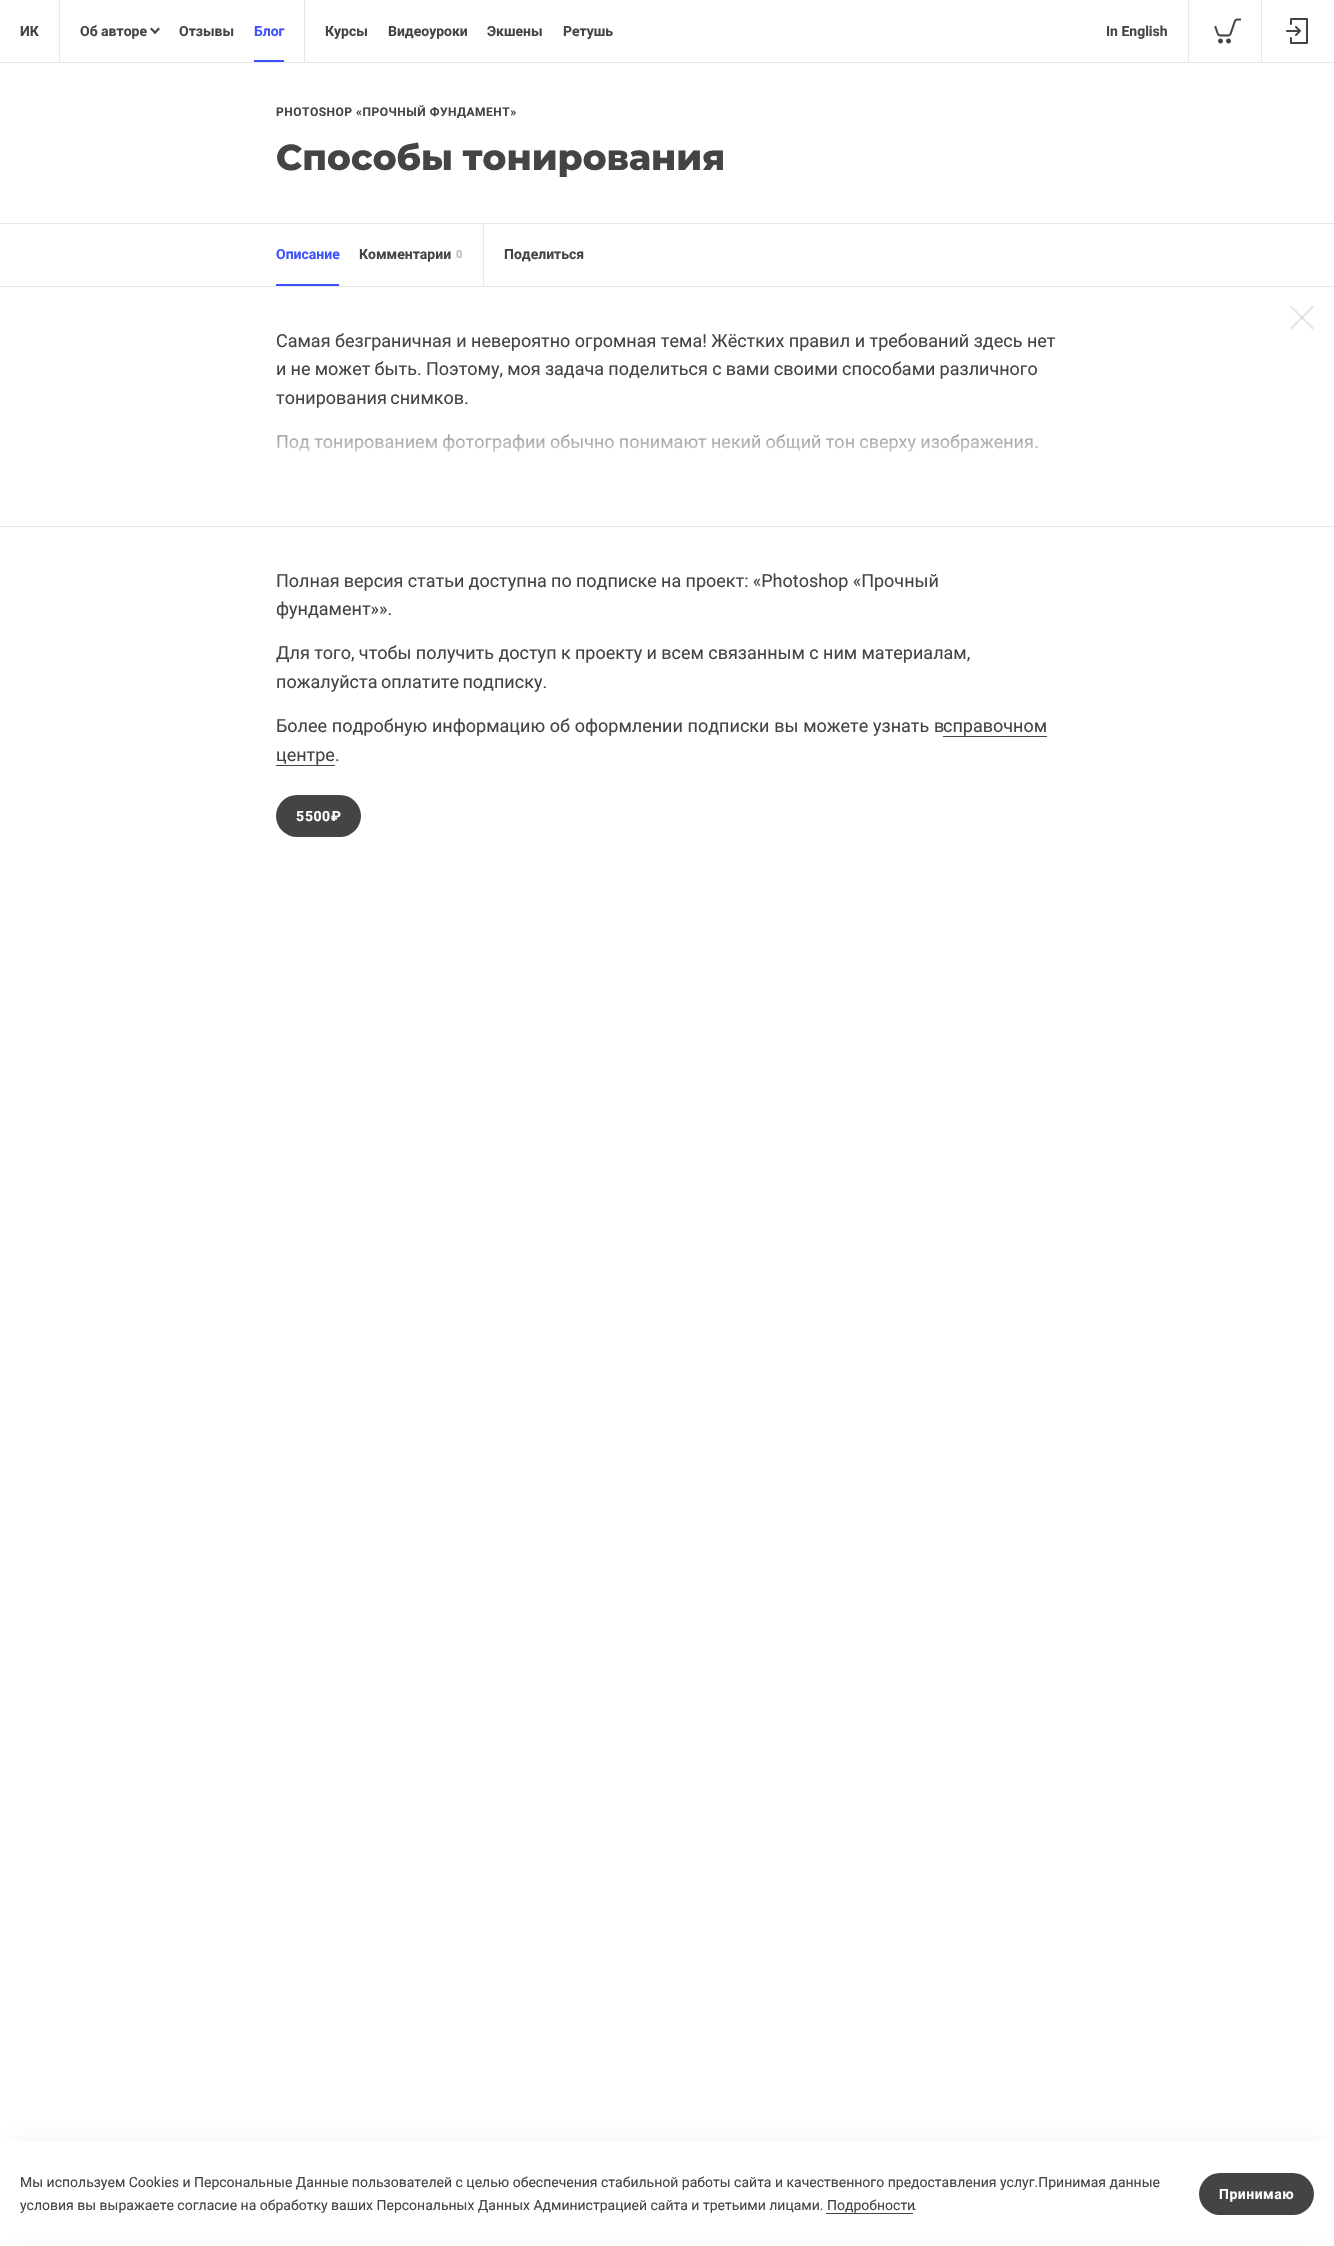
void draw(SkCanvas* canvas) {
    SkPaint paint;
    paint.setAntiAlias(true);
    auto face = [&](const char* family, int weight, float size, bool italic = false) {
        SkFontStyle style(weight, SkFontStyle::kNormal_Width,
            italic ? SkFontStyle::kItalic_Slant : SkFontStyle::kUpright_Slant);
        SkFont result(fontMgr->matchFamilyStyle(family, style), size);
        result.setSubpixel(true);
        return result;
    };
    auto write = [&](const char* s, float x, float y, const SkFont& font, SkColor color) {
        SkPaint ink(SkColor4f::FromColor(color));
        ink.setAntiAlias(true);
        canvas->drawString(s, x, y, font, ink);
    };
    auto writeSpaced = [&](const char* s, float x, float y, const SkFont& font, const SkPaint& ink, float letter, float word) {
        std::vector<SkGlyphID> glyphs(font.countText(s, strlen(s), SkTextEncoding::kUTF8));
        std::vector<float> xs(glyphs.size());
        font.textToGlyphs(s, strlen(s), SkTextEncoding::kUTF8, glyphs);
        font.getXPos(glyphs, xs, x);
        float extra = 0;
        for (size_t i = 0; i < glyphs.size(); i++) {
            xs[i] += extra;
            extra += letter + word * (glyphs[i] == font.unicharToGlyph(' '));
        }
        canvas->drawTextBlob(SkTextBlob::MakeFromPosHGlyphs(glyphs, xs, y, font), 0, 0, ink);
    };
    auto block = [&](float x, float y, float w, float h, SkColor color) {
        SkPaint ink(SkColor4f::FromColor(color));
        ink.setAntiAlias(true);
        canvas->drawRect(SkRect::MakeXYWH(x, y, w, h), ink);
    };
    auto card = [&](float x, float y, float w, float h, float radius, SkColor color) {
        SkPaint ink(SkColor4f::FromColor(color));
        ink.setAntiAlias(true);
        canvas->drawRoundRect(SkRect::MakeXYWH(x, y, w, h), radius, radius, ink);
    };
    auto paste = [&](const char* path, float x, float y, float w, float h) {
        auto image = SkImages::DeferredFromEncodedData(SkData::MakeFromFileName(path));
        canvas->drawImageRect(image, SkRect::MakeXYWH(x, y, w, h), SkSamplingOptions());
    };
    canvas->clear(SK_ColorWHITE);
    block(0, 62, 1334, 1, SkColorSetRGB(230, 230, 230));
    auto kFont1 = face("Roboto", 700, 14);
    write("ИК", 20, 36, kFont1, SkColorSetRGB(68, 68, 68));
    block(59, 0, 1, 62, SkColorSetRGB(230, 230, 230));
    write("Об авторе", 80, 36, kFont1, SkColorSetRGB(68, 68, 68));
    paint.setColor(SkColorSetRGB(68, 68, 68));
    canvas->drawPath(SkPathBuilder().moveTo(158.5f, 27.5f).lineTo(160, 29).lineTo(155, 34).lineTo(153.5f, 32.5f).close().detach(), paint);
    canvas->drawPath(SkPathBuilder().moveTo(151.5f, 27.5f).lineTo(156.5f, 32.5f).lineTo(155, 34).lineTo(150, 29).close().detach(), paint);
    write("Отзывы", 179, 36, kFont1, SkColorSetRGB(68, 68, 68));
    block(254, 60, 30, 2, SkColorSetRGB(61, 81, 255));
    write("Блог", 254, 36, kFont1, SkColorSetRGB(61, 81, 255));
    block(304, 0, 1, 62, SkColorSetRGB(230, 230, 230));
    write("Курсы", 325, 36, kFont1, SkColorSetRGB(68, 68, 68));
    write("Видеоуроки", 388, 36, kFont1, SkColorSetRGB(68, 68, 68));
    write("Экшены", 487, 36, kFont1, SkColorSetRGB(68, 68, 68));
    write("Ретушь", 563, 36, kFont1, SkColorSetRGB(68, 68, 68));
    write("In English", 1106, 36, kFont1, SkColorSetRGB(68, 68, 68));
    block(1188, 0, 1, 62, SkColorSetRGB(230, 230, 230));
    paste("pic1.png", 1214, 18, 27, 26);
    block(1261, 0, 1, 62, SkColorSetRGB(230, 230, 230));
    paste("pic2.png", 1286, 18, 22, 26);
    auto kFont2 = face("Roboto", 700, 12);
    writeSpaced("PHOTOSHOP «ПРОЧНЫЙ ФУНДАМЕНТ»", 276, 116, kFont2, paint, 0.5f, 0);
    auto kFont3 = face("Montserrat", 100, 36);
    writeSpaced("Способы тонирования", 276, 170, kFont3, paint, 0, -1);
    block(0, 223, 1334, 1, SkColorSetRGB(230, 230, 230));
    block(0, 286, 1334, 1, SkColorSetRGB(230, 230, 230));
    block(276, 284, 63, 2, SkColorSetRGB(61, 81, 255));
    write("Описание", 276, 259, kFont1, SkColorSetRGB(61, 81, 255));
    write("Комментарии", 359, 259, kFont1, SkColorSetRGB(68, 68, 68));
    auto kFont4 = face("Roboto", 700, 11);
    write("0", 456, 258, kFont4, SkColorSetRGB(187, 187, 187));
    block(483, 224, 1, 62, SkColorSetRGB(230, 230, 230));
    write("Поделиться", 504, 259, kFont1, SkColorSetRGB(68, 68, 68));
    paint.setColor(SkColorSetRGB(230, 230, 230));
    canvas->drawPath(SkPathBuilder().moveTo(1290, 307).lineTo(1291.5f, 305.5f).lineTo(1314, 328).lineTo(1312.5f, 329.5f).close().detach(), paint);
    paint.setColor(SkColorSetARGB(77, 170, 170, 170));
    canvas->drawPath(SkPathBuilder().moveTo(1312.5f, 305.5f).lineTo(1314, 307).lineTo(1291.5f, 329.5f).lineTo(1290, 328).close().detach(), paint);
    auto kFont5 = face("Roboto", 400, 18);
    write("Самая безграничная и невероятно огромная тема! Жёстких правил и требований здесь нет", 276, 347, kFont5, SkColorSetRGB(68, 68, 68));
    paint.setColor(SkColorSetRGB(68, 68, 68));
    writeSpaced("и не может быть. Поэтому, моя задача поделиться с вами своими способами различного", 276, 375, kFont5, paint, 0, -0.25f);
    writeSpaced("тонирования снимков.", 276, 404, kFont5, paint, 0, -1);
    writeSpaced("Под тонированием фотографии обычно понимают некий общий тон сверху изображения.", 276, 448, kFont5, paint, 0, -0.25f);
    {
        const SkColor colors[] = {SkColorSetARGB(0, 255, 255, 255), SK_ColorWHITE};
        const float stops[] = {0, 0.8f};
        const SkPoint ends[] = {{667, 406}, {667, 486}};
        paint.setShader(SkGradientShader::MakeLinear(ends, colors, stops, 2, SkTileMode::kClamp));
        paint.setAlpha(255);
    }
    canvas->drawRect(SkRect::MakeXYWH(277, 407, 760, 45), paint);
    block(0, 526, 1334, 1, SkColorSetRGB(230, 230, 230));
    paint.setShader(nullptr);
    paint.setColor(SkColorSetRGB(68, 68, 68));
    writeSpaced("Полная версия статьи доступна по подписке на проект: «Photoshop «Прочный", 276, 587, kFont5, paint, 0, -0.25f);
    write("фундамент»».", 276, 615, kFont5, SkColorSetRGB(68, 68, 68));
    writeSpaced("Для того, чтобы получить доступ к проекту и всем связанным с ним материалам,", 276, 659, kFont5, paint, 0, -0.1f);
    writeSpaced("пожалуйста оплатите подписку.", 276, 688, kFont5, paint, 0, -1);
    writeSpaced("Более подробную информацию об оформлении подписки вы можете узнать в", 276, 732, kFont5, paint, 0, 0.25f);
    write("справочном", 943, 732, kFont5, SkColorSetRGB(68, 68, 68));
    block(943, 736, 104, 1, SkColorSetRGB(68, 68, 68));
    write("центре.", 276, 761, kFont5, SkColorSetRGB(68, 68, 68));
    block(276, 765, 59, 1, SkColorSetRGB(68, 68, 68));
    card(276, 795, 85, 42, 21, SkColorSetRGB(68, 68, 68));
    paint.setColor(SK_ColorWHITE);
    writeSpaced("5 500", 296, 821, kFont1, paint, 0.5f, 0);
    writeSpaced("₽", 331, 821, kFont1, paint, 0.5f, 0);
    paint.setColor(SkColorSetARGB(26, 51, 51, 51));
    paint.setMaskFilter(SkMaskFilter::MakeBlur(kNormal_SkBlurStyle, 15));
    canvas->drawRect(SkRect::MakeXYWH(15, 2146, 1304, 75), paint);
    paint.setMaskFilter(nullptr);
    block(0, 2141, 1334, 97, SK_ColorWHITE);
    auto kFont6 = face("Roboto", 400, 14);
    write("Мы используем Cookies и Персональные Данные пользователей с целью обеспечения стабильной работы сайта и качественного предоставления услуг.Принимая данные", 20, 2187, kFont6, SkColorSetRGB(68, 68, 68));
    write("условия вы выражаете согласие на обработку ваших Персональных Данных Администрацией сайта и третьими лицами. Подробности", 20, 2210, kFont6, SkColorSetRGB(68, 68, 68));
    write(".", 913, 2210, kFont6, SkColorSetRGB(68, 68, 68));
    block(826, 2213, 87, 1, SkColorSetRGB(68, 68, 68));
    card(1199, 2173, 115, 42, 21, SkColorSetRGB(68, 68, 68));
    paint.setColor(SK_ColorWHITE);
    writeSpaced("Принимаю", 1219, 2199, kFont1, paint, 0.5f, 0);
}
